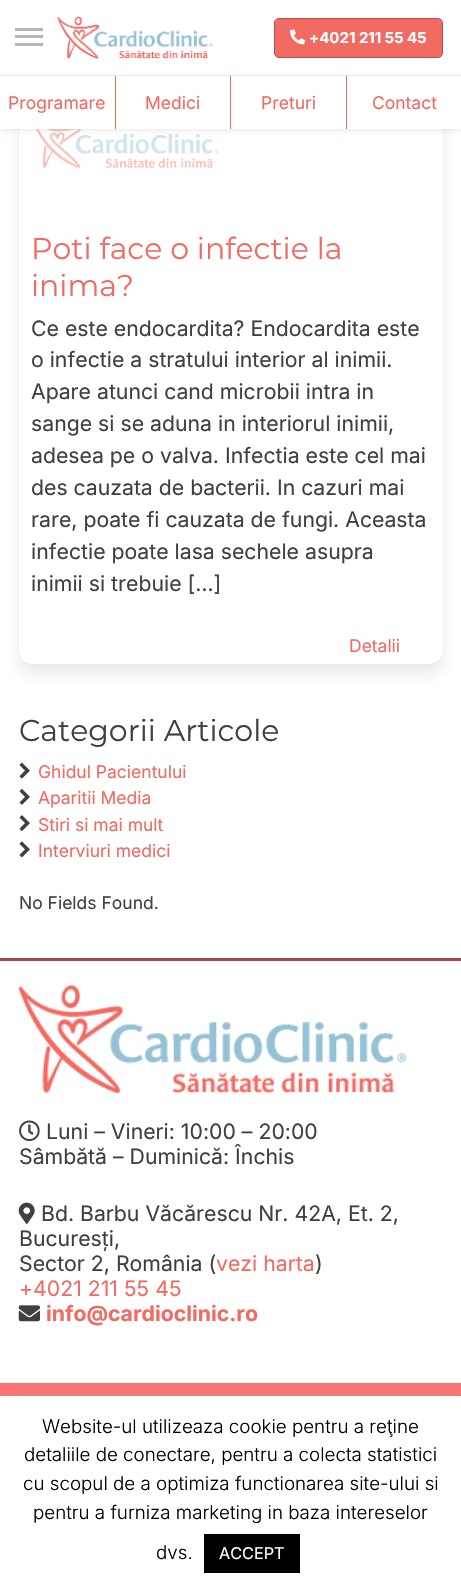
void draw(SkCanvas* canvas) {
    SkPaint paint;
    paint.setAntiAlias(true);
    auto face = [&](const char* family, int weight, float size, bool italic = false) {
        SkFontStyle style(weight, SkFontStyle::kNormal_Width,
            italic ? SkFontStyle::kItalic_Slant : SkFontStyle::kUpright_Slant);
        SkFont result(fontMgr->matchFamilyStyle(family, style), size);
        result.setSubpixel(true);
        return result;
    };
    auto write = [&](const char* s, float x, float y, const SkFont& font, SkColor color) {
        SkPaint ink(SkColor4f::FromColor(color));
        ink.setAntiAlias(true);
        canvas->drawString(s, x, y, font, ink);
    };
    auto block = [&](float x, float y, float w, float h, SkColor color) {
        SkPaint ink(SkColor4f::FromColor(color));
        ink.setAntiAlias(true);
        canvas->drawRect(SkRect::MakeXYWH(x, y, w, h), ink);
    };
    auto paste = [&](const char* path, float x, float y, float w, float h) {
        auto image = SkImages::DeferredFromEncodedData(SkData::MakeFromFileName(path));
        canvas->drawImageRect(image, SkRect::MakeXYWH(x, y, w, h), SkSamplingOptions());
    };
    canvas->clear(SK_ColorWHITE);
    canvas->save();
    canvas->clipPath(SkPathBuilder(SkPathFillType::kEvenOdd).moveTo(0, 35).lineTo(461, 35).lineTo(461, 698).lineTo(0, 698).close().moveTo(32, 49).lineTo(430, 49).cubicTo(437, 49, 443, 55, 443, 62).lineTo(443, 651).cubicTo(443, 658, 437, 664, 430, 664).lineTo(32, 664).cubicTo(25, 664, 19, 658, 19, 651).lineTo(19, 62).cubicTo(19, 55, 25, 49, 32, 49).close().detach(), true);
    paint.setColor(SkColorSetARGB(26, 48, 49, 51));
    paint.setMaskFilter(SkMaskFilter::MakeBlur(kNormal_SkBlurStyle, 7.5f));
    canvas->drawRoundRect(SkRect::MakeXYWH(19, 59, 424, 615), 13, 13, paint);
    paint.setMaskFilter(nullptr);
    canvas->restore();
    canvas->save();
    canvas->clipPath(SkPathBuilder(SkPathFillType::kEvenOdd).moveTo(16, 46).lineTo(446, 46).lineTo(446, 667).lineTo(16, 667).close().moveTo(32, 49).lineTo(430, 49).cubicTo(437, 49, 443, 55, 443, 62).lineTo(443, 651).cubicTo(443, 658, 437, 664, 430, 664).lineTo(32, 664).cubicTo(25, 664, 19, 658, 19, 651).lineTo(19, 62).cubicTo(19, 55, 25, 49, 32, 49).close().detach(), true);
    paint.setColor(SkColorSetARGB(38, 48, 49, 51));
    paint.setMaskFilter(SkMaskFilter::MakeBlur(kNormal_SkBlurStyle, 0.5f));
    canvas->drawRoundRect(SkRect::MakeXYWH(19, 49, 424, 615), 13, 13, paint);
    paint.setMaskFilter(nullptr);
    canvas->restore();
    paste("pic3.png", 36, 129, 183, 40);
    paint.setColor(SkColorSetARGB(18, 0, 0, 0));
    paint.setMaskFilter(SkMaskFilter::MakeBlur(kNormal_SkBlurStyle, 2.5f));
    canvas->drawRect(SkRect::MakeXYWH(0, 3, 461, 128), paint);
    paint.setMaskFilter(nullptr);
    block(0, 0, 461, 129, SK_ColorWHITE);
    block(0, 75, 461, 1, SkColorSetRGB(230, 230, 230));
    block(15, 28, 28, 3, SkColorSetRGB(182, 182, 182));
    block(15, 35, 28, 3, SkColorSetRGB(182, 182, 182));
    block(15, 43, 28, 3, SkColorSetRGB(182, 182, 182));
    paste("pic1.png", 57, 16, 156, 43);
    paint.setColor(SkColorSetRGB(241, 107, 99));
    canvas->drawRoundRect(SkRect::MakeXYWH(274.5f, 18.5f, 168, 39), 4.5f, 4.5f, paint);
    paint.setStyle(SkPaint::kStroke_Style);
    paint.setStrokeWidth(1);
    paint.setColor(SkColorSetRGB(187, 76, 74));
    canvas->drawRoundRect(SkRect::MakeXYWH(274.5f, 18.5f, 168, 39), 4.5f, 4.5f, paint);
    paste("pic2.png", 290, 29, 15, 16);
    auto kFont1 = face("Inter", 700, 15);
    write("+4021 211 55 45", 309, 43, kFont1, SK_ColorWHITE);
    block(115, 76, 1, 53, SkColorSetRGB(241, 107, 99));
    auto kFont2 = face("Inter", 400, 17.5f);
    write("Programare", 8, 109, kFont2, SkColorSetRGB(241, 107, 99));
    block(230, 76, 1, 53, SkColorSetRGB(241, 107, 99));
    write("Medici", 145, 109, kFont2, SkColorSetRGB(241, 107, 99));
    block(346, 76, 1, 53, SkColorSetRGB(241, 107, 99));
    write("Preturi", 261, 109, kFont2, SkColorSetRGB(241, 107, 99));
    write("Contact", 372, 109, kFont2, SkColorSetRGB(241, 107, 99));
    auto kFont3 = face("Montserrat", 100, 30);
    write("Poti face o infectie la", 31, 259, kFont3, SkColorSetRGB(241, 107, 99));
    write("inima?", 31, 296, kFont3, SkColorSetRGB(241, 107, 99));
    auto kFont4 = face("Inter", 400, 21.25f);
    write("Ce este endocardita? Endocardita este", 31, 336, kFont4, SkColorSetRGB(64, 64, 64));
    write("o infectie a stratului interior al inimii.", 31, 367, kFont4, SkColorSetRGB(64, 64, 64));
    write("Apare atunci cand microbii intra in", 31, 399, kFont4, SkColorSetRGB(64, 64, 64));
    write("sange si se aduna in interiorul inimii,", 31, 431, kFont4, SkColorSetRGB(64, 64, 64));
    write("adesea pe o valva. Infectia este cel mai", 31, 463, kFont4, SkColorSetRGB(64, 64, 64));
    write("des cauzata de bacterii. In cazuri mai", 31, 495, kFont4, SkColorSetRGB(64, 64, 64));
    write("rare, poate fi cauzata de fungi. Aceasta", 31, 527, kFont4, SkColorSetRGB(64, 64, 64));
    write("infectie poate lasa sechele asupra", 31, 559, kFont4, SkColorSetRGB(64, 64, 64));
    write("inimii si trebuie […]", 31, 591, kFont4, SkColorSetRGB(64, 64, 64));
    write("Detalii", 349, 652, kFont2, SkColorSetRGB(241, 107, 99));
    write("Categorii Articole", 19, 741, kFont3, SkColorSetRGB(64, 64, 64));
    paste("pic4.png", 19, 762, 11, 17);
    write("Ghidul Pacientului", 38, 778, kFont2, SkColorSetRGB(241, 107, 99));
    paste("pic5.png", 19, 789, 11, 16);
    write("Aparitii Media", 38, 804, kFont2, SkColorSetRGB(241, 107, 99));
    paste("pic6.png", 19, 815, 11, 16);
    write("Stiri si mai mult", 38, 831, kFont2, SkColorSetRGB(241, 107, 99));
    paste("pic7.png", 19, 841, 11, 17);
    write("Interviuri medici", 38, 857, kFont2, SkColorSetRGB(241, 107, 99));
    write("No Fields Found.", 19, 909, kFont2, SkColorSetRGB(64, 64, 64));
    block(0, 958, 461, 3, SkColorSetRGB(172, 70, 69));
    paste("pic8.png", 18, 984, 389, 110);
    paste("pic9.png", 19, 1120, 21, 22);
    write("Luni – Vineri: 10:00 – 20:00", 46, 1139, kFont4, SkColorSetRGB(64, 64, 64));
    write("Sâmbătă – Duminică: Închis", 19, 1164, kFont4, SkColorSetRGB(64, 64, 64));
    paste("pic10.png", 18, 1202, 17, 22);
    write("Bd. Barbu Văcărescu Nr. 42A, Et. 2,", 41, 1221, kFont4, SkColorSetRGB(64, 64, 64));
    write("Bucuresți,", 19, 1246, kFont4, SkColorSetRGB(64, 64, 64));
    write("Sector 2, România (", 19, 1271, kFont4, SkColorSetRGB(64, 64, 64));
    write("vezi harta", 216, 1271, kFont4, SkColorSetRGB(241, 107, 99));
    write(")", 315, 1271, kFont4, SkColorSetRGB(64, 64, 64));
    write("+4021 211 55 45", 19, 1296, kFont4, SkColorSetRGB(241, 107, 99));
    paste("pic11.png", 18, 1305, 22, 17);
    auto kFont5 = face("Inter", 700, 21.25f);
    write("info@cardioclinic.ro", 46, 1321, kFont5, SkColorSetRGB(241, 107, 99));
    block(0, 1383, 461, 13, SkColorSetRGB(255, 112, 112));
    paint.setStyle(SkPaint::kFill_Style);
    paint.setColor(SkColorSetARGB(77, 172, 171, 171));
    paint.setMaskFilter(SkMaskFilter::MakeBlur(kNormal_SkBlurStyle, 6));
    canvas->drawRect(SkRect::MakeXYWH(0, 1395, 461, 198), paint);
    paint.setMaskFilter(nullptr);
    block(0, 1396, 461, 197, SK_ColorWHITE);
    auto kFont6 = face("Inter", 300, 18.75f);
    write("Website-ul utilizeaza cookie pentru a reţine", 42, 1433, kFont6, SK_ColorBLACK);
    write("detaliile de conectare, pentru a colecta statistici", 24, 1461, kFont6, SK_ColorBLACK);
    write("cu scopul de a optimiza functionarea site-ului si", 23, 1490, kFont6, SK_ColorBLACK);
    write("pentru a furniza marketing in baza intereselor", 33, 1519, kFont6, SK_ColorBLACK);
    write("dvs.", 156, 1559, kFont6, SK_ColorBLACK);
    block(204, 1534, 96, 39, SK_ColorBLACK);
    auto kFont7 = face("Inter", 400, 16.25f);
    write("ACCEPT", 219, 1559, kFont7, SK_ColorWHITE);
}
